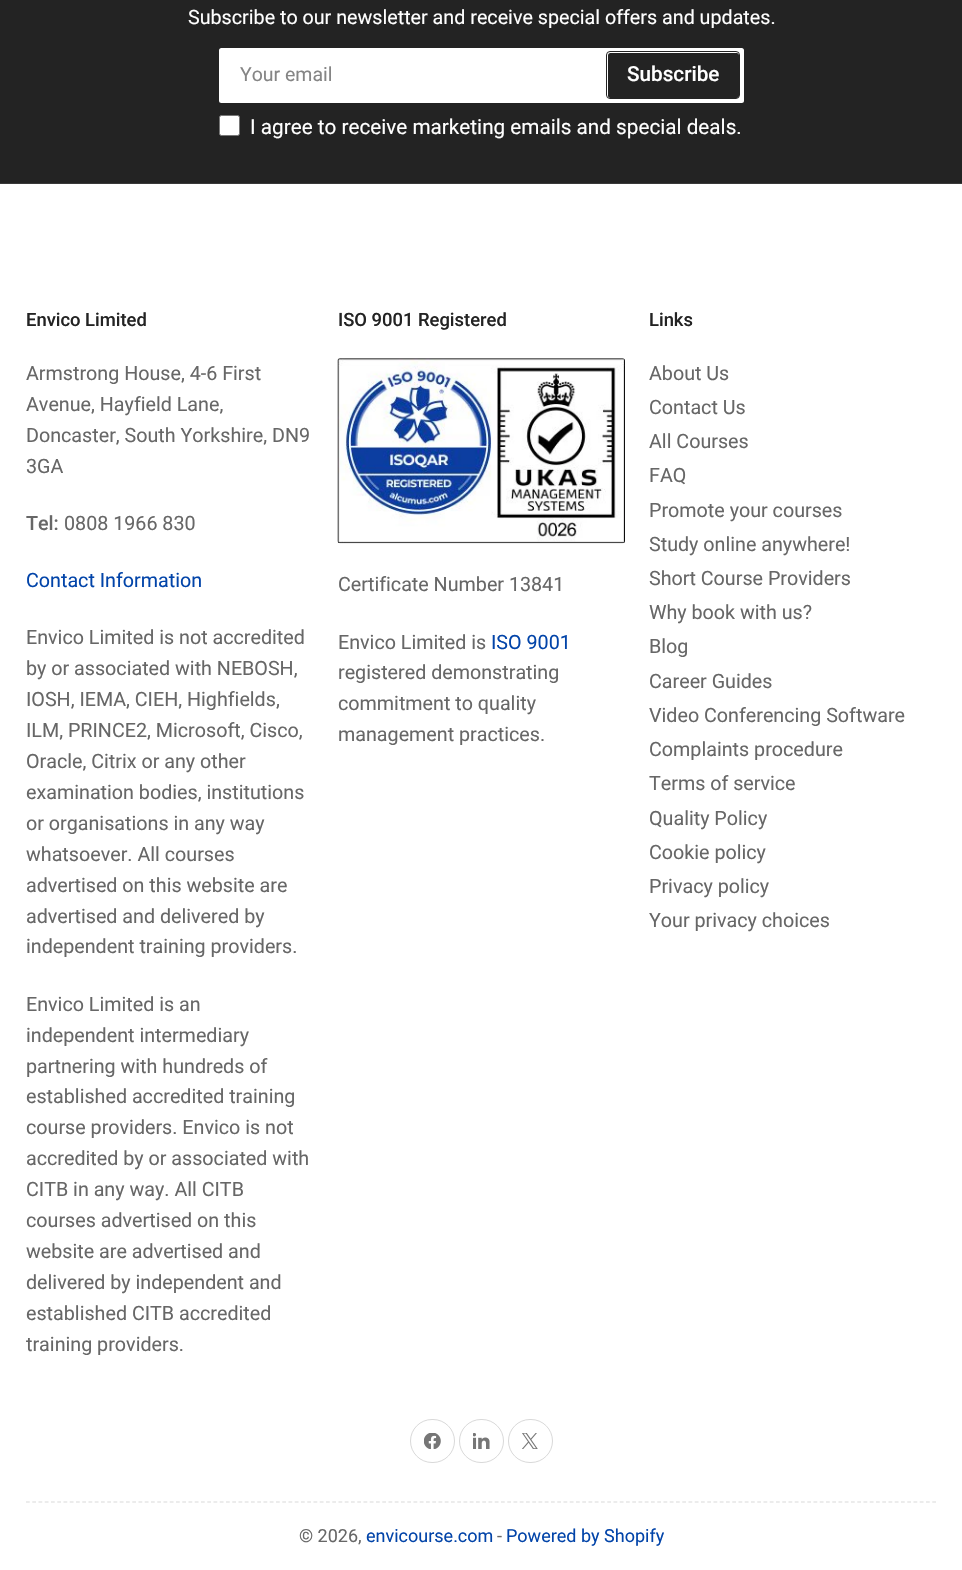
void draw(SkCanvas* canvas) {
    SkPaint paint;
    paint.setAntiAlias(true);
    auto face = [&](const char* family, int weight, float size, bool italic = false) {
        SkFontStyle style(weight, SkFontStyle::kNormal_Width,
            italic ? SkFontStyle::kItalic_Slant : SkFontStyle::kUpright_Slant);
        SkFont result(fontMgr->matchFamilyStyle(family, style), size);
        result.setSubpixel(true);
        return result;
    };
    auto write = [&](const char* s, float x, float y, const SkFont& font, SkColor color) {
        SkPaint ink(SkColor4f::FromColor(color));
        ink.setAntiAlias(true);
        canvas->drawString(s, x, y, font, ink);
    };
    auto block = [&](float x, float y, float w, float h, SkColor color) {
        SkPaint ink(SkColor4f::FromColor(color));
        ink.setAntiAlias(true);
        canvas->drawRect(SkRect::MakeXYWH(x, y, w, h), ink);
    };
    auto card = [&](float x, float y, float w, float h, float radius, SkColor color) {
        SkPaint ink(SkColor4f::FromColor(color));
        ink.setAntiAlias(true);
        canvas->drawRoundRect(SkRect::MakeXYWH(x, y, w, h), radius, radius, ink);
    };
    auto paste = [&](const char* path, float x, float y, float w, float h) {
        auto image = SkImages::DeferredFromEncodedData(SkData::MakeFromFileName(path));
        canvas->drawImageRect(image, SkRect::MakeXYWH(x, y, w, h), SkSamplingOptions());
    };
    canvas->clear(SK_ColorWHITE);
    block(0, 0, 962, 183, SkColorSetRGB(35, 35, 35));
    block(0, 183, 962, 1, SkColorSetRGB(57, 57, 57));
    auto kFont1 = face("Roboto", 400, 19.7f);
    write("Subscribe to our newsletter and receive special offers and updates.", 188, 24, kFont1, SK_ColorWHITE);
    card(219, 48, 525, 55, 2.5f, SK_ColorWHITE);
    paint.setStyle(SkPaint::kStroke_Style);
    paint.setStrokeWidth(1);
    paint.setColor(SkColorSetARGB(26, 255, 255, 255));
    canvas->drawRoundRect(SkRect::MakeXYWH(219.5f, 48.5f, 524, 54), 2, 2, paint);
    auto kFont2 = face("Roboto", 400, 19.5f);
    write("Your email", 240, 81, kFont2, SkColorSetRGB(133, 133, 133));
    paint.setColor(SkColorSetRGB(35, 35, 35));
    canvas->drawRoundRect(SkRect::MakeXYWH(606.5f, 51.5f, 133, 47), 3.5f, 3.5f, paint);
    card(608, 53, 131, 45, 2.5f, SkColorSetRGB(35, 35, 35));
    auto kFont3 = face("Roboto", 500, 20.7f);
    write("Subscribe", 627, 81, kFont3, SK_ColorWHITE);
    paint.setStyle(SkPaint::kFill_Style);
    paint.setColor(SK_ColorWHITE);
    canvas->drawRoundRect(SkRect::MakeXYWH(219.5f, 115.5f, 20, 20), 2, 2, paint);
    paint.setStyle(SkPaint::kStroke_Style);
    paint.setColor(SkColorSetRGB(118, 118, 118));
    canvas->drawRoundRect(SkRect::MakeXYWH(219.5f, 115.5f, 20, 20), 2, 2, paint);
    auto kFont4 = face("Roboto", 400, 20.7f);
    write("I agree to receive marketing emails and special deals.", 250, 134, kFont4, SK_ColorWHITE);
    auto kFont5 = face("Roboto", 500, 18.4f);
    write("Envico Limited", 26, 326, kFont5, SkColorSetRGB(35, 35, 35));
    write("Armstrong House, 4-6 First", 26, 380, kFont1, SkColorSetRGB(103, 103, 103));
    write("Avenue, Hayfield Lane,", 26, 411, kFont1, SkColorSetRGB(103, 103, 103));
    write("Doncaster, South Yorkshire, DN9", 26, 442, kFont1, SkColorSetRGB(103, 103, 103));
    write("3GA", 26, 473, kFont1, SkColorSetRGB(103, 103, 103));
    auto kFont6 = face("Roboto", 500, 19.7f);
    write("Tel:", 26, 530, kFont6, SkColorSetRGB(103, 103, 103));
    write("0808 1966 830", 64, 530, kFont1, SkColorSetRGB(103, 103, 103));
    write("Contact Information", 26, 587, kFont1, SkColorSetRGB(2, 68, 169));
    write("Envico Limited is not accredited", 26, 644, kFont1, SkColorSetRGB(103, 103, 103));
    write("by or associated with NEBOSH,", 26, 675, kFont1, SkColorSetRGB(103, 103, 103));
    write("IOSH, IEMA, CIEH, Highfields,", 26, 706, kFont1, SkColorSetRGB(103, 103, 103));
    write("ILM, PRINCE2, Microsoft, Cisco,", 26, 737, kFont1, SkColorSetRGB(103, 103, 103));
    write("Oracle, Citrix or any other", 26, 768, kFont1, SkColorSetRGB(103, 103, 103));
    write("examination bodies, institutions", 26, 799, kFont1, SkColorSetRGB(103, 103, 103));
    write("or organisations in any way", 26, 830, kFont1, SkColorSetRGB(103, 103, 103));
    write("whatsoever. All courses", 26, 861, kFont1, SkColorSetRGB(103, 103, 103));
    write("advertised on this website are", 26, 892, kFont1, SkColorSetRGB(103, 103, 103));
    write("advertised and delivered by", 26, 923, kFont1, SkColorSetRGB(103, 103, 103));
    write("independent training providers.", 26, 953, kFont1, SkColorSetRGB(103, 103, 103));
    write("Envico Limited is an", 26, 1011, kFont1, SkColorSetRGB(103, 103, 103));
    write("independent intermediary", 26, 1042, kFont1, SkColorSetRGB(103, 103, 103));
    write("partnering with hundreds of", 26, 1073, kFont1, SkColorSetRGB(103, 103, 103));
    write("established accredited training", 26, 1103, kFont1, SkColorSetRGB(103, 103, 103));
    write("course providers. Envico is not", 26, 1134, kFont1, SkColorSetRGB(103, 103, 103));
    write("accredited by or associated with", 26, 1165, kFont1, SkColorSetRGB(103, 103, 103));
    write("CITB in any way. All CITB", 26, 1196, kFont1, SkColorSetRGB(103, 103, 103));
    write("courses advertised on this", 26, 1227, kFont1, SkColorSetRGB(103, 103, 103));
    write("website are advertised and", 26, 1258, kFont1, SkColorSetRGB(103, 103, 103));
    write("delivered by independent and", 26, 1289, kFont1, SkColorSetRGB(103, 103, 103));
    write("established CITB accredited", 26, 1320, kFont1, SkColorSetRGB(103, 103, 103));
    write("training providers.", 26, 1351, kFont1, SkColorSetRGB(103, 103, 103));
    write("ISO 9001 Registered", 338, 326, kFont5, SkColorSetRGB(35, 35, 35));
    paste("pic1.png", 337, 358, 288, 186);
    write("Certificate Number 13841", 338, 591, kFont1, SkColorSetRGB(103, 103, 103));
    write("Envico Limited is", 338, 649, kFont1, SkColorSetRGB(103, 103, 103));
    write("ISO 9001", 491, 649, kFont1, SkColorSetRGB(2, 68, 169));
    write("registered demonstrating", 338, 679, kFont1, SkColorSetRGB(103, 103, 103));
    write("commitment to quality", 338, 710, kFont1, SkColorSetRGB(103, 103, 103));
    write("management practices.", 338, 741, kFont1, SkColorSetRGB(103, 103, 103));
    write("Links", 649, 326, kFont5, SkColorSetRGB(35, 35, 35));
    write("About Us", 649, 380, kFont1, SkColorSetRGB(103, 103, 103));
    write("Contact Us", 649, 414, kFont1, SkColorSetRGB(103, 103, 103));
    write("All Courses", 649, 448, kFont1, SkColorSetRGB(103, 103, 103));
    write("FAQ", 649, 482, kFont1, SkColorSetRGB(103, 103, 103));
    write("Promote your courses", 649, 517, kFont1, SkColorSetRGB(103, 103, 103));
    write("Study online anywhere!", 649, 551, kFont1, SkColorSetRGB(103, 103, 103));
    write("Short Course Providers", 649, 585, kFont1, SkColorSetRGB(103, 103, 103));
    write("Why book with us?", 649, 619, kFont1, SkColorSetRGB(103, 103, 103));
    write("Blog", 649, 653, kFont1, SkColorSetRGB(103, 103, 103));
    write("Career Guides", 649, 688, kFont1, SkColorSetRGB(103, 103, 103));
    write("Video Conferencing Software", 649, 722, kFont1, SkColorSetRGB(103, 103, 103));
    write("Complaints procedure", 649, 756, kFont1, SkColorSetRGB(103, 103, 103));
    write("Terms of service", 649, 790, kFont1, SkColorSetRGB(103, 103, 103));
    write("Quality Policy", 649, 825, kFont1, SkColorSetRGB(103, 103, 103));
    write("Cookie policy", 649, 859, kFont1, SkColorSetRGB(103, 103, 103));
    write("Privacy policy", 649, 893, kFont1, SkColorSetRGB(103, 103, 103));
    write("Your privacy choices", 649, 927, kFont1, SkColorSetRGB(103, 103, 103));
    paint.setColor(SkColorSetRGB(217, 217, 217));
    canvas->drawRoundRect(SkRect::MakeXYWH(410.5f, 1419.5f, 44, 43), 21.5f, 21.5f, paint);
    paste("pic2.png", 424, 1433, 17, 16);
    canvas->drawRoundRect(SkRect::MakeXYWH(459.5f, 1419.5f, 44, 43), 21.5f, 21.5f, paint);
    paste("pic3.png", 473, 1433, 17, 16);
    canvas->drawRoundRect(SkRect::MakeXYWH(508.5f, 1419.5f, 44, 43), 21.5f, 21.5f, paint);
    paste("pic4.png", 522, 1433, 16, 16);
    paint.setStrokeWidth(1.2f);
    paint.setColor(SkColorSetRGB(218, 218, 218));
    paint.setPathEffect(SkDashPathEffect::Make({{3.75f, 2.5f}}, 0));
    canvas->drawPath(SkPathBuilder().moveTo(26, 1502).lineTo(936, 1502).detach(), paint);
    paint.setPathEffect(nullptr);
    auto kFont7 = face("Roboto", 400, 18);
    write("© 2026,", 299, 1542, kFont7, SkColorSetRGB(103, 103, 103));
    write("envicourse.com", 366, 1542, kFont7, SkColorSetRGB(2, 68, 169));
    write("-", 497, 1542, kFont7, SkColorSetRGB(103, 103, 103));
    write("Powered by Shopify", 506, 1542, kFont7, SkColorSetRGB(2, 68, 169));
}
